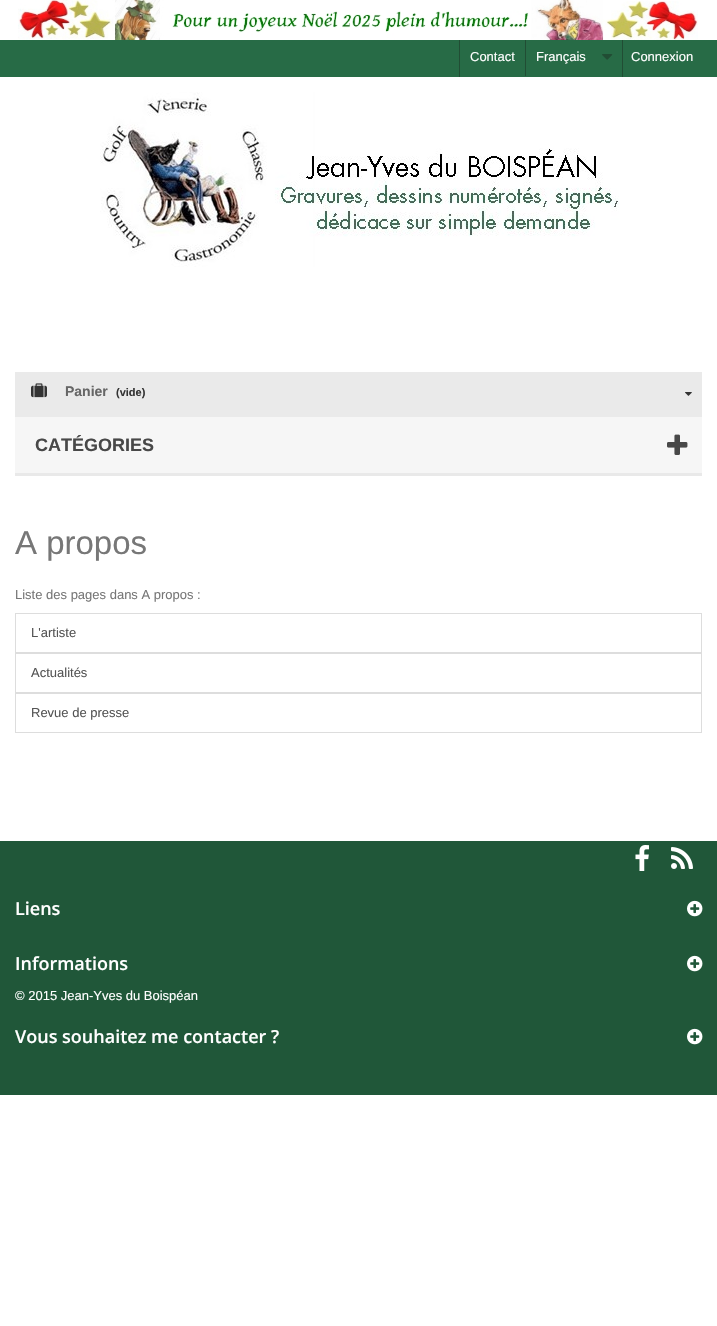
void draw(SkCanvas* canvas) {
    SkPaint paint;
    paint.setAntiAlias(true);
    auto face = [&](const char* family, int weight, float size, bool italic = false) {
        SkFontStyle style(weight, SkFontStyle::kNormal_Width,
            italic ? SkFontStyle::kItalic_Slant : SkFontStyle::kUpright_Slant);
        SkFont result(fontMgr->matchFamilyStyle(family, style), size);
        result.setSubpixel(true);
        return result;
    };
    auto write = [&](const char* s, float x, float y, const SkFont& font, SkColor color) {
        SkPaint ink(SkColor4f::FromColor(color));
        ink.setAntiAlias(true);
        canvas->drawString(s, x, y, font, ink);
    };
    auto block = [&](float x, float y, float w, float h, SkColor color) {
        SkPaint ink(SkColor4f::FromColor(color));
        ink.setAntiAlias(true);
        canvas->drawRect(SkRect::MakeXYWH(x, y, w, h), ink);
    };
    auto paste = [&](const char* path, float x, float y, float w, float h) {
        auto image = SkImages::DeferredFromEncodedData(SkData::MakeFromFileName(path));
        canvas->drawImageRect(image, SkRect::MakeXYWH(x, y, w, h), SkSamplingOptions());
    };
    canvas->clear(SK_ColorWHITE);
    paste("pic1.png", 18, 0, 680, 40);
    block(0, 40, 717, 37, SkColorSetRGB(39, 107, 70));
    block(459, 40, 1, 37, SkColorSetRGB(33, 77, 52));
    auto kFont1 = face("Liberation Sans", 400, 13);
    write("Contact", 470, 61, kFont1, SK_ColorWHITE);
    block(525, 40, 1, 36, SkColorSetRGB(33, 77, 52));
    write("Français", 536, 61, kFont1, SK_ColorWHITE);
    paste("pic2.png", 602, 54, 11, 6);
    block(622, 40, 1, 37, SkColorSetRGB(33, 77, 52));
    write("Connexion", 631, 61, kFont1, SK_ColorWHITE);
    paste("pic3.png", 100, 92, 519, 175);
    block(15, 372, 687, 45, SkColorSetRGB(234, 234, 234));
    paste("pic4.png", 31, 383, 16, 15);
    auto kFont2 = face("Liberation Sans", 700, 14);
    write("Panier", 65, 396, kFont2, SkColorSetRGB(102, 102, 102));
    auto kFont3 = face("Liberation Sans", 700, 11);
    write("(vide)", 116, 396, kFont3, SkColorSetRGB(51, 51, 51));
    paste("pic5.png", 685, 392, 7, 4);
    block(15, 417, 687, 56, SkColorSetRGB(246, 246, 246));
    block(15, 473, 687, 3, SkColorSetRGB(233, 233, 233));
    auto kFont4 = face("Liberation Sans", 700, 18);
    write("CATÉGORIES", 35, 451, kFont4, SkColorSetRGB(72, 72, 72));
    paste("pic6.png", 667, 434, 21, 21);
    auto kFont5 = face("Liberation Sans", 400, 33);
    write("A propos", 15, 554, kFont5, SkColorSetRGB(119, 119, 119));
    write("Liste des pages dans A propos :", 15, 599, kFont1, SkColorSetRGB(119, 119, 119));
    paint.setStyle(SkPaint::kStroke_Style);
    paint.setStrokeWidth(1);
    paint.setColor(SkColorSetRGB(221, 221, 221));
    canvas->drawRect(SkRect::MakeXYWH(15.5f, 613.5f, 686, 39), paint);
    write("L'artiste", 31, 637, kFont1, SkColorSetRGB(85, 85, 85));
    canvas->drawRect(SkRect::MakeXYWH(15.5f, 653.5f, 686, 39), paint);
    write("Actualités", 31, 677, kFont1, SkColorSetRGB(85, 85, 85));
    canvas->drawRect(SkRect::MakeXYWH(15.5f, 693.5f, 686, 39), paint);
    write("Revue de presse", 31, 717, kFont1, SkColorSetRGB(85, 85, 85));
    block(0, 841, 717, 254, SkColorSetRGB(32, 87, 57));
    paste("pic7.png", 635, 845, 14, 26);
    paste("pic8.png", 671, 847, 22, 22);
    auto kFont6 = face("Open Sans", 600, 18);
    write("Liens", 15, 915, kFont6, SK_ColorWHITE);
    paste("pic9.png", 687, 900, 16, 17);
    write("Informations", 15, 970, kFont6, SK_ColorWHITE);
    paste("pic9.png", 687, 955, 16, 17);
    write("© 2015 Jean-Yves du Boispéan", 15, 1000, kFont1, SK_ColorWHITE);
    write("Vous souhaitez me contacter ?", 15, 1043, kFont6, SK_ColorWHITE);
    paste("pic9.png", 687, 1028, 16, 17);
}
